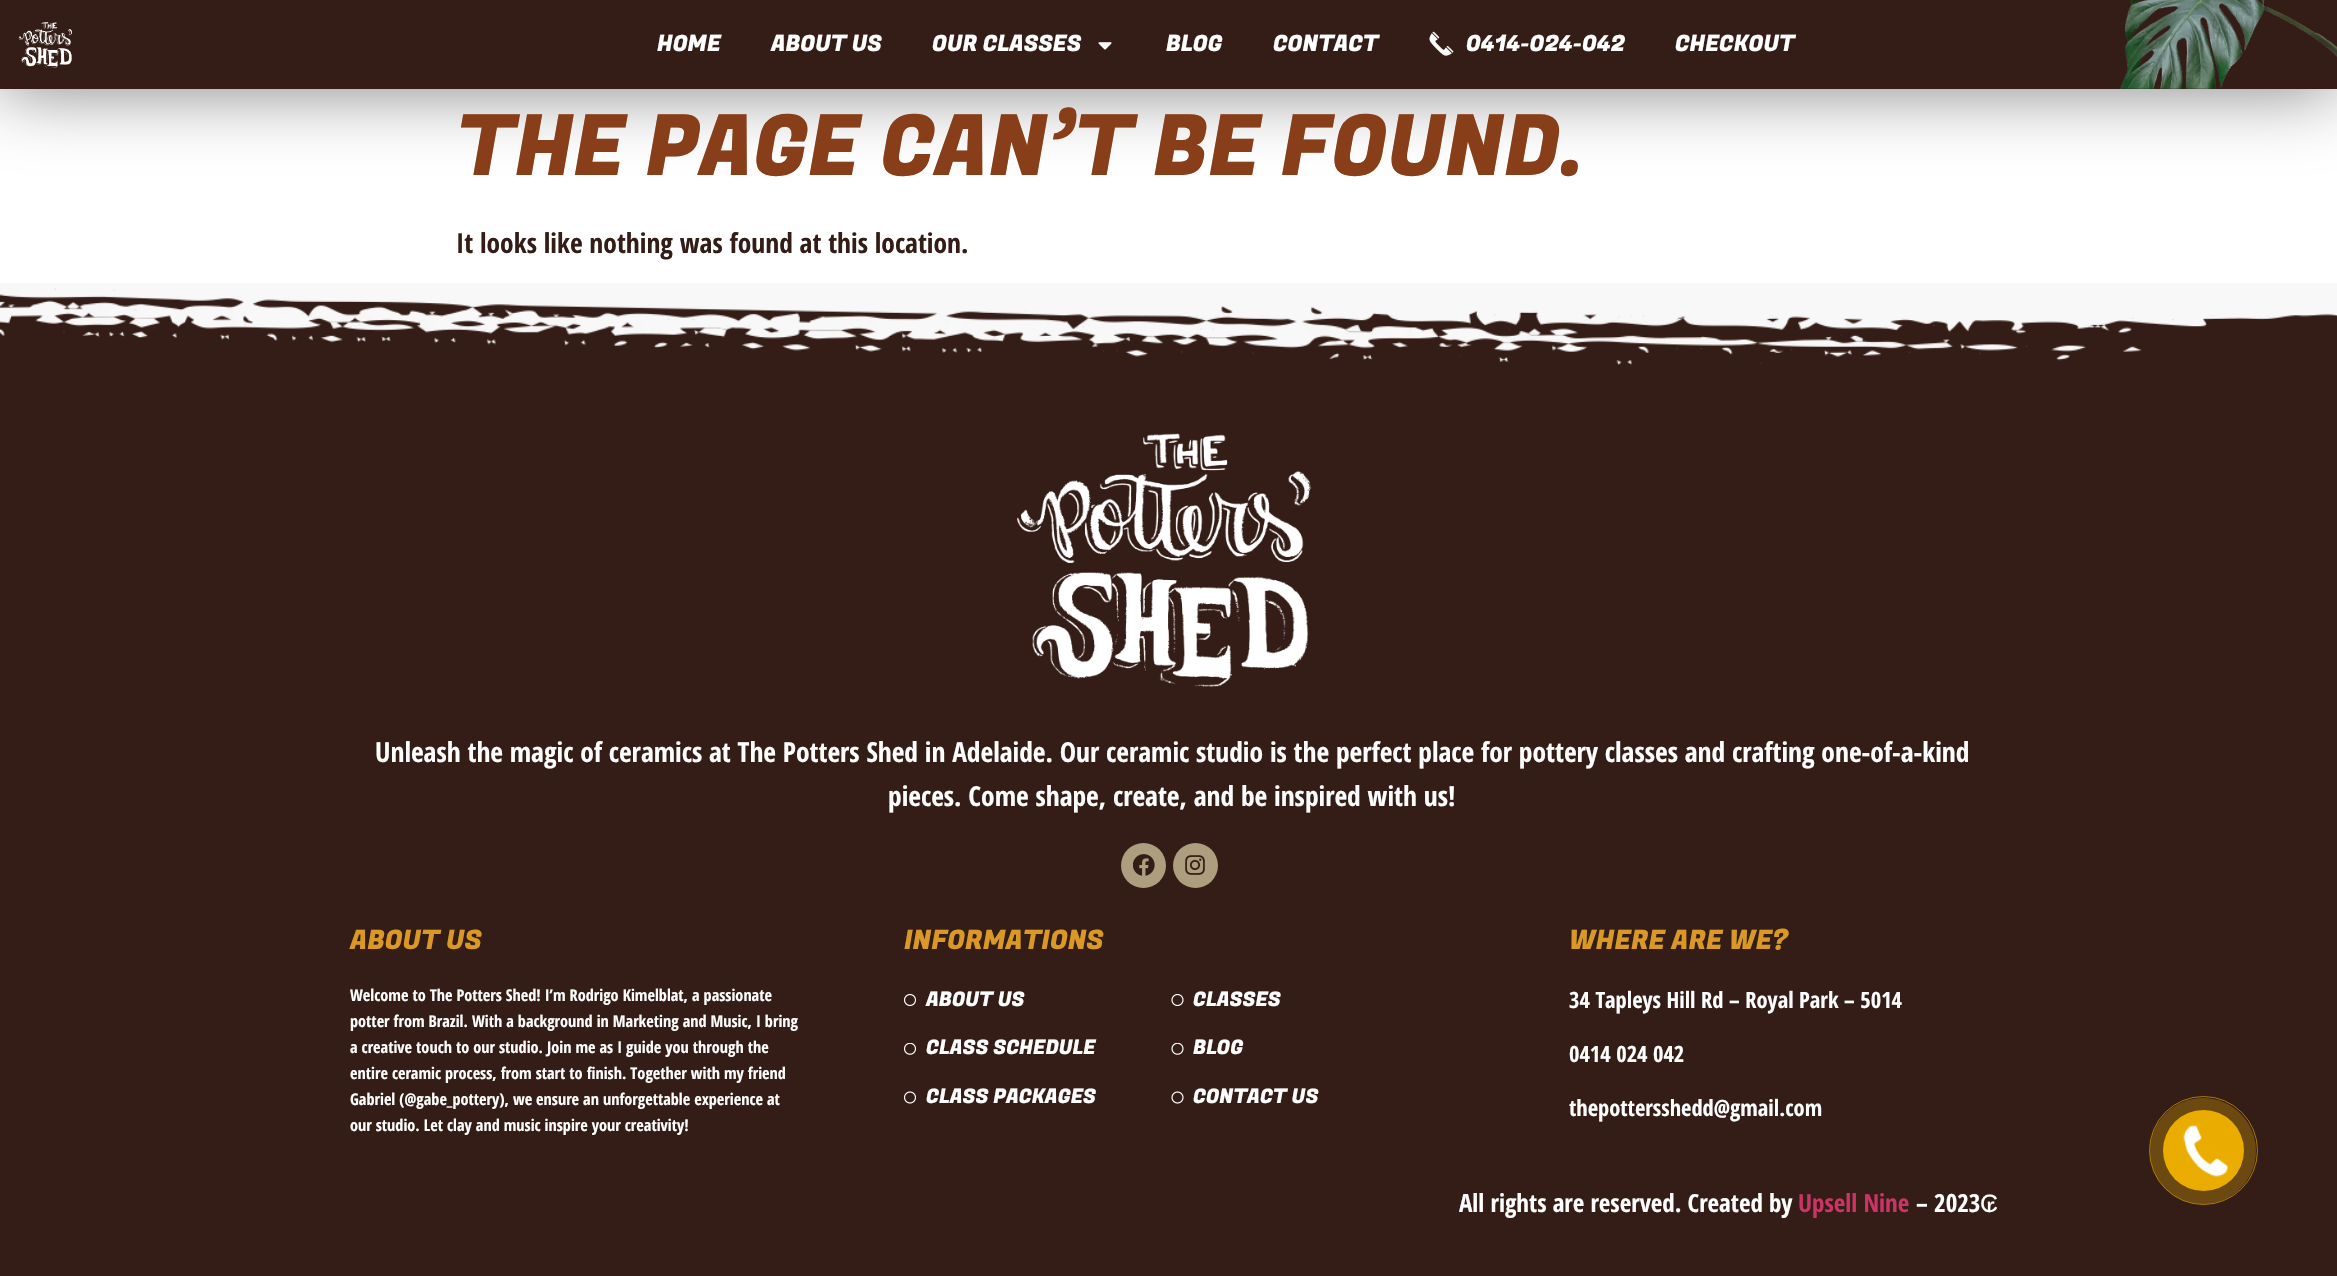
void draw(SkCanvas* canvas) {
    SkPaint paint;
    paint.setAntiAlias(true);
    auto face = [&](const char* family, int weight, float size, bool italic = false) {
        SkFontStyle style(weight, SkFontStyle::kNormal_Width,
            italic ? SkFontStyle::kItalic_Slant : SkFontStyle::kUpright_Slant);
        SkFont result(fontMgr->matchFamilyStyle(family, style), size);
        result.setSubpixel(true);
        return result;
    };
    auto write = [&](const char* s, float x, float y, const SkFont& font, SkColor color) {
        SkPaint ink(SkColor4f::FromColor(color));
        ink.setAntiAlias(true);
        canvas->drawString(s, x, y, font, ink);
    };
    auto block = [&](float x, float y, float w, float h, SkColor color) {
        SkPaint ink(SkColor4f::FromColor(color));
        ink.setAntiAlias(true);
        canvas->drawRect(SkRect::MakeXYWH(x, y, w, h), ink);
    };
    auto paste = [&](const char* path, float x, float y, float w, float h) {
        auto image = SkImages::DeferredFromEncodedData(SkData::MakeFromFileName(path));
        canvas->drawImageRect(image, SkRect::MakeXYWH(x, y, w, h), SkSamplingOptions());
    };
    canvas->clear(SK_ColorWHITE);
    paint.setColor(SkColorSetARGB(128, 0, 0, 0));
    paint.setMaskFilter(SkMaskFilter::MakeBlur(kNormal_SkBlurStyle, 36));
    canvas->drawRect(SkRect::MakeXYWH(0, 0, 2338, 89), paint);
    paint.setMaskFilter(nullptr);
    block(0, 0, 2337, 89, SkColorSetRGB(51, 29, 22));
    paste("pic1.png", 18, 22, 54, 46);
    auto kFont1 = face("Fugaz One", 400, 22.5f);
    write("HOME", 657, 51, kFont1, SK_ColorWHITE);
    write("ABOUT US", 771, 51, kFont1, SK_ColorWHITE);
    write("OUR CLASSES", 932, 51, kFont1, SK_ColorWHITE);
    paste("pic2.png", 1098, 42, 14, 8);
    write("BLOG", 1166, 51, kFont1, SK_ColorWHITE);
    write("CONTACT", 1273, 51, kFont1, SK_ColorWHITE);
    paste("pic3.png", 1429, 31, 25, 25);
    write("0414-024-042", 1466, 51, kFont1, SK_ColorWHITE);
    write("CHECKOUT", 1675, 51, kFont1, SK_ColorWHITE);
    paste("pic4.png", 2120, 0, 217, 89);
    auto kFont2 = face("Fugaz One", 400, 84.25f);
    write("THE PAGE CAN’T BE FOUND.", 456, 175, kFont2, SkColorSetRGB(136, 62, 24));
    auto kFont3 = face("Open Sans Condensed", 700, 27.5f);
    write("It looks like nothing was found at this location.", 456, 253, kFont3, SkColorSetRGB(51, 29, 22));
    block(0, 283, 2337, 993, SkColorSetRGB(51, 29, 22));
    paste("pic5.png", 0, 283, 2337, 82);
    paste("pic6.png", 1017, 433, 295, 254);
    write("Unleash the magic of ceramics at The Potters Shed in Adelaide. Our ceramic studio is the perfect place for pottery classes and crafting one-of-a-kind", 375, 762, kFont3, SK_ColorWHITE);
    write("pieces. Come shape, create, and be inspired with us!", 888, 806, kFont3, SK_ColorWHITE);
    paint.setColor(SkColorSetRGB(173, 158, 126));
    canvas->drawCircle(1143.5f, 865.5f, 22.5f, paint);
    paste("pic7.png", 1133, 854, 22, 22);
    canvas->drawCircle(1195.5f, 865.5f, 22.5f, paint);
    paste("pic8.png", 1185, 855, 20, 20);
    auto kFont4 = face("Fugaz One", 400, 26.75f);
    write("ABOUT US", 350, 949, kFont4, SkColorSetRGB(218, 153, 39));
    auto kFont5 = face("Open Sans Condensed", 700, 16.25f);
    write("Welcome to The Potters Shed! I’m Rodrigo Kimelblat, a passionate", 350, 1001, kFont5, SK_ColorWHITE);
    write("potter from Brazil. With a background in Marketing and Music, I bring", 350, 1027, kFont5, SK_ColorWHITE);
    write("a creative touch to our studio. Join me as I guide you through the", 350, 1053, kFont5, SK_ColorWHITE);
    write("entire ceramic process, from start to finish. Together with my friend", 350, 1079, kFont5, SK_ColorWHITE);
    write("Gabriel (@gabe_pottery), we ensure an unforgettable experience at", 350, 1105, kFont5, SK_ColorWHITE);
    write("our studio. Let clay and music inspire your creativity!", 350, 1131, kFont5, SK_ColorWHITE);
    write("INFORMATIONS", 904, 949, kFont4, SkColorSetRGB(218, 153, 39));
    paste("pic9.png", 904, 994, 12, 12);
    auto kFont6 = face("Fugaz One", 400, 20);
    write("ABOUT US", 926, 1006, kFont6, SK_ColorWHITE);
    paste("pic10.png", 904, 1043, 12, 12);
    write("CLASS SCHEDULE", 926, 1054, kFont6, SK_ColorWHITE);
    paste("pic11.png", 904, 1091, 12, 13);
    write("CLASS PACKAGES", 926, 1103, kFont6, SK_ColorWHITE);
    paste("pic12.png", 1171, 994, 13, 12);
    write("CLASSES", 1193, 1006, kFont6, SK_ColorWHITE);
    paste("pic13.png", 1171, 1043, 13, 12);
    write("BLOG", 1193, 1054, kFont6, SK_ColorWHITE);
    paste("pic14.png", 1171, 1091, 13, 13);
    write("CONTACT US", 1193, 1103, kFont6, SK_ColorWHITE);
    write("WHERE ARE WE?", 1569, 949, kFont4, SkColorSetRGB(218, 153, 39));
    auto kFont7 = face("Open Sans Condensed", 700, 22.5f);
    write("34 Tapleys Hill Rd – Royal Park – 5014", 1569, 1008, kFont7, SK_ColorWHITE);
    write("0414 024 042", 1569, 1062, kFont7, SK_ColorWHITE);
    write("thepottersshedd@gmail.com", 1569, 1116, kFont7, SK_ColorWHITE);
    auto kFont8 = face("Open Sans Condensed", 700, 25);
    write("All rights are reserved. Created by", 1459, 1212, kFont8, SK_ColorWHITE);
    write("Upsell Nine", 1798, 1212, kFont8, SkColorSetRGB(204, 51, 102));
    write("– 2023", 1916, 1212, kFont8, SK_ColorWHITE);
    auto kFont9 = face("Liberation Sans", 400, 25);
    write("₢", 1980, 1212, kFont9, SK_ColorWHITE);
    paint.setColor(SkColorSetARGB(77, 235, 172, 0));
    canvas->drawCircle(2203, 1151, 53, paint);
    paint.setStyle(SkPaint::kStroke_Style);
    paint.setStrokeWidth(1);
    paint.setColor(SkColorSetARGB(163, 235, 172, 0));
    canvas->drawCircle(2203.5f, 1150.5f, 54, paint);
    paint.setStyle(SkPaint::kFill_Style);
    paint.setColor(SkColorSetRGB(235, 172, 0));
    canvas->drawCircle(2203.5f, 1150.5f, 40.5f, paint);
    paste("pic15.png", 2183, 1125, 45, 52);
}
